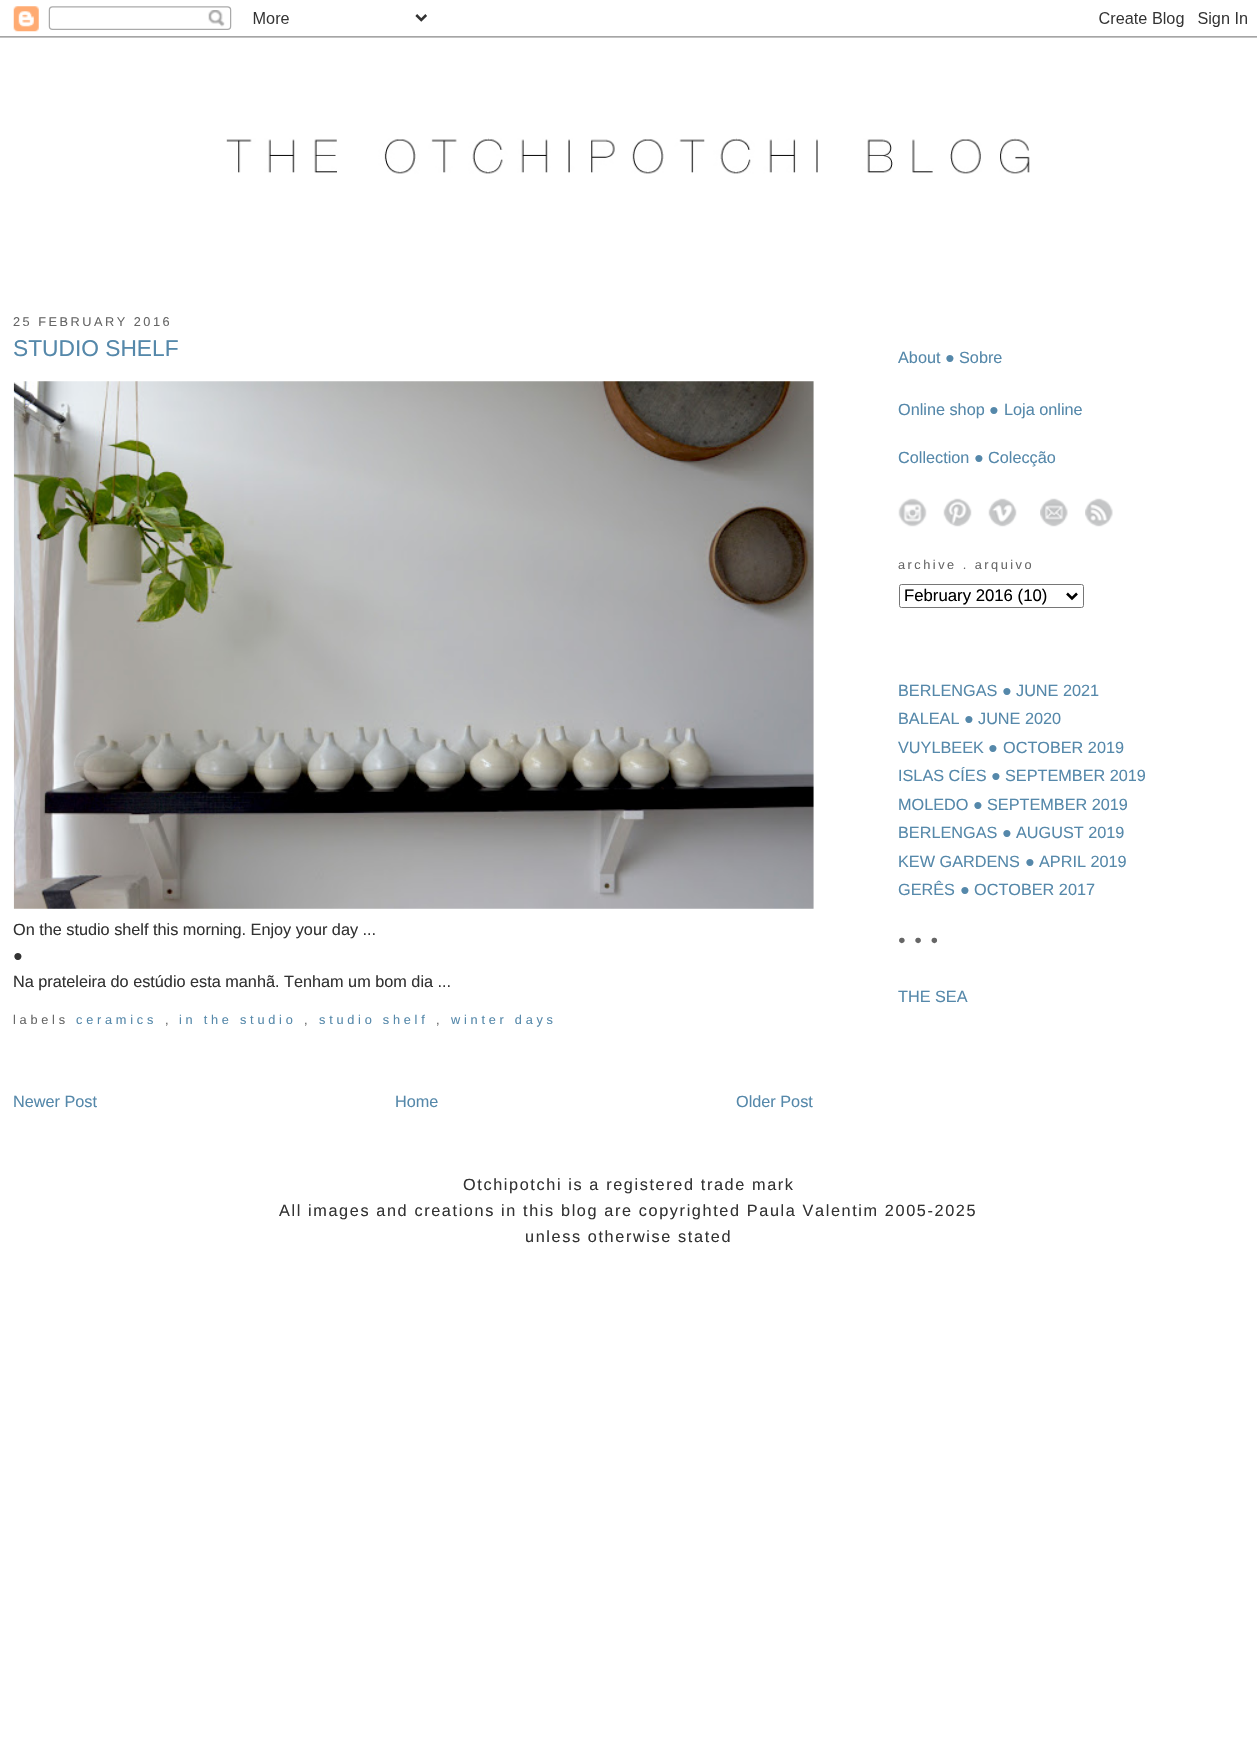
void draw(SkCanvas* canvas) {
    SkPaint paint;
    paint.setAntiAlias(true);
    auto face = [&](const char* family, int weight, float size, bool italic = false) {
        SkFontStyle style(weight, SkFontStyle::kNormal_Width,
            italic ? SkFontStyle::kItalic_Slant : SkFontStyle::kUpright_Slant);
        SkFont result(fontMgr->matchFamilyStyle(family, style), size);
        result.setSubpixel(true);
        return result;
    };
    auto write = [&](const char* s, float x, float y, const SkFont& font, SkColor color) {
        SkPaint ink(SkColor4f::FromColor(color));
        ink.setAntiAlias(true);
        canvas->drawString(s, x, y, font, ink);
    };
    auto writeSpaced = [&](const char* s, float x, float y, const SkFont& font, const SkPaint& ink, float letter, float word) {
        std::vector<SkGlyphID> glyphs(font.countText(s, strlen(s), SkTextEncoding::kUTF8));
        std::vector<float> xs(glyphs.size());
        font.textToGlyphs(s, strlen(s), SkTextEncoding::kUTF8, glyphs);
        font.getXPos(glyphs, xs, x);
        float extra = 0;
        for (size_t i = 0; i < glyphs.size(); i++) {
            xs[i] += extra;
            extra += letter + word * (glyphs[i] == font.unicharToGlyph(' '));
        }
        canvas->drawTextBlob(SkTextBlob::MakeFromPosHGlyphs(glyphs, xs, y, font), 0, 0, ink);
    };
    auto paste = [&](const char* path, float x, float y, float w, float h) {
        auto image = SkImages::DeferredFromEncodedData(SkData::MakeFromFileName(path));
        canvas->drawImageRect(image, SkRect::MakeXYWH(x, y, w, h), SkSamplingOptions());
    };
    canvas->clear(SK_ColorWHITE);
    paste("pic1.png", 0, 6, 1257, 32);
    paste("pic2.png", 226, 138, 804, 36);
    auto kFont1 = face("Liberation Sans", 400, 12.75f);
    paint.setColor(SkColorSetRGB(102, 102, 102));
    writeSpaced("25 FEBRUARY 2016", 13, 326, kFont1, paint, 2.5f, 0);
    auto kFont2 = face("Arimo", 400, 22.75f);
    write("STUDIO SHELF", 13, 356, kFont2, SkColorSetRGB(85, 136, 170));
    paste("pic3.png", 13, 381, 801, 528);
    auto kFont3 = face("Arimo", 400, 16.25f);
    write("On the studio shelf this morning. Enjoy your day ...", 13, 935, kFont3, SkColorSetRGB(51, 51, 51));
    auto kFont4 = face("Liberation Serif", 400, 16.25f);
    write("●", 13, 961, kFont4, SkColorSetRGB(51, 51, 51));
    write("Na prateleira do estúdio esta manhã. Tenham um bom dia ...", 13, 987, kFont3, SkColorSetRGB(51, 51, 51));
    writeSpaced("labels", 13, 1024, kFont1, paint, 3.75f, 0);
    paint.setColor(SkColorSetRGB(85, 136, 170));
    writeSpaced("ceramics", 76, 1024, kFont1, paint, 3.75f, 0);
    paint.setColor(SkColorSetRGB(102, 102, 102));
    writeSpaced(",", 165, 1024, kFont1, paint, 3.75f, 0);
    paint.setColor(SkColorSetRGB(85, 136, 170));
    writeSpaced("in the studio", 179, 1024, kFont1, paint, 3.75f, 0);
    paint.setColor(SkColorSetRGB(102, 102, 102));
    writeSpaced(",", 304, 1024, kFont1, paint, 3.75f, 0);
    paint.setColor(SkColorSetRGB(85, 136, 170));
    writeSpaced("studio shelf", 319, 1024, kFont1, paint, 3.75f, 0);
    paint.setColor(SkColorSetRGB(102, 102, 102));
    writeSpaced(",", 436, 1024, kFont1, paint, 3.75f, 0);
    paint.setColor(SkColorSetRGB(85, 136, 170));
    writeSpaced("winter days", 451, 1024, kFont1, paint, 3.75f, 0);
    write("Newer Post", 13, 1107, kFont3, SkColorSetRGB(85, 136, 170));
    write("Home", 395, 1107, kFont3, SkColorSetRGB(85, 136, 170));
    write("Older Post", 736, 1107, kFont3, SkColorSetRGB(85, 136, 170));
    write("About", 898, 363, kFont3, SkColorSetRGB(85, 136, 170));
    write("●", 945, 363, kFont4, SkColorSetRGB(85, 136, 170));
    write("Sobre", 959, 363, kFont3, SkColorSetRGB(85, 136, 170));
    write("Online shop", 898, 415, kFont3, SkColorSetRGB(85, 136, 170));
    write("●", 989, 415, kFont4, SkColorSetRGB(85, 136, 170));
    write("Loja online", 1004, 415, kFont3, SkColorSetRGB(85, 136, 170));
    write("Collection", 898, 463, kFont3, SkColorSetRGB(85, 136, 170));
    write("●", 974, 463, kFont4, SkColorSetRGB(85, 136, 170));
    write("Colecção", 988, 463, kFont3, SkColorSetRGB(85, 136, 170));
    paste("pic4.png", 898, 498, 29, 29);
    paste("pic5.png", 943, 498, 29, 29);
    paste("pic6.png", 988, 498, 29, 29);
    paste("pic7.png", 1040, 498, 28, 29);
    paste("pic8.png", 1085, 498, 28, 29);
    paint.setColor(SkColorSetRGB(102, 102, 102));
    writeSpaced("archive . arquivo", 898, 569, kFont1, paint, 2.5f, 0);
    paint.setStyle(SkPaint::kStroke_Style);
    paint.setStrokeWidth(1);
    paint.setColor(SkColorSetRGB(118, 118, 118));
    canvas->drawRoundRect(SkRect::MakeXYWH(899.5f, 584.5f, 184, 23), 2, 2, paint);
    paint.setStrokeWidth(2.5f);
    paint.setColor(SK_ColorBLACK);
    canvas->drawPath(SkPathBuilder().moveTo(1067, 593.5f).lineTo(1072, 598.5f).lineTo(1077, 593.5f).detach(), paint);
    auto kFont5 = face("Liberation Sans", 400, 16.75f);
    write("February 2016 (10)", 904, 601, kFont5, SK_ColorBLACK);
    write("BERLENGAS", 898, 696, kFont3, SkColorSetRGB(85, 136, 170));
    write("●", 1002, 696, kFont4, SkColorSetRGB(85, 136, 170));
    write("JUNE 2021", 1016, 696, kFont3, SkColorSetRGB(85, 136, 170));
    write("BALEAL", 898, 724, kFont3, SkColorSetRGB(85, 136, 170));
    write("●", 964, 724, kFont4, SkColorSetRGB(85, 136, 170));
    write("JUNE 2020", 978, 724, kFont3, SkColorSetRGB(85, 136, 170));
    write("VUYLBEEK", 898, 753, kFont3, SkColorSetRGB(85, 136, 170));
    write("●", 988, 753, kFont4, SkColorSetRGB(85, 136, 170));
    write("OCTOBER 2019", 1003, 753, kFont3, SkColorSetRGB(85, 136, 170));
    write("ISLAS CÍES", 898, 781, kFont3, SkColorSetRGB(85, 136, 170));
    write("●", 991, 781, kFont4, SkColorSetRGB(85, 136, 170));
    write("SEPTEMBER 2019", 1005, 781, kFont3, SkColorSetRGB(85, 136, 170));
    write("MOLEDO", 898, 810, kFont3, SkColorSetRGB(85, 136, 170));
    write("●", 973, 810, kFont4, SkColorSetRGB(85, 136, 170));
    write("SEPTEMBER 2019", 987, 810, kFont3, SkColorSetRGB(85, 136, 170));
    write("BERLENGAS", 898, 838, kFont3, SkColorSetRGB(85, 136, 170));
    write("●", 1002, 838, kFont4, SkColorSetRGB(85, 136, 170));
    write("AUGUST 2019", 1016, 838, kFont3, SkColorSetRGB(85, 136, 170));
    write("KEW GARDENS", 898, 867, kFont3, SkColorSetRGB(85, 136, 170));
    write("●", 1025, 867, kFont4, SkColorSetRGB(85, 136, 170));
    write("APRIL 2019", 1039, 867, kFont3, SkColorSetRGB(85, 136, 170));
    write("GERÊS", 898, 895, kFont3, SkColorSetRGB(85, 136, 170));
    write("●", 960, 895, kFont4, SkColorSetRGB(85, 136, 170));
    write("OCTOBER 2017", 974, 895, kFont3, SkColorSetRGB(85, 136, 170));
    paint.setStyle(SkPaint::kFill_Style);
    paint.setColor(SkColorSetRGB(102, 102, 102));
    writeSpaced("● ● ●", 898, 944, kFont1, paint, 2.5f, 0);
    write("THE SEA", 898, 1002, kFont3, SkColorSetRGB(85, 136, 170));
    paint.setColor(SkColorSetRGB(51, 51, 51));
    writeSpaced("Otchipotchi is a registered trade mark", 463, 1190, kFont3, paint, 1.62f, 0);
    writeSpaced("All images and creations in this blog are copyrighted Paula Valentim 2005-2025", 279, 1216, kFont3, paint, 1.62f, 0);
    writeSpaced("unless otherwise stated", 525, 1242, kFont3, paint, 1.62f, 0);
}
